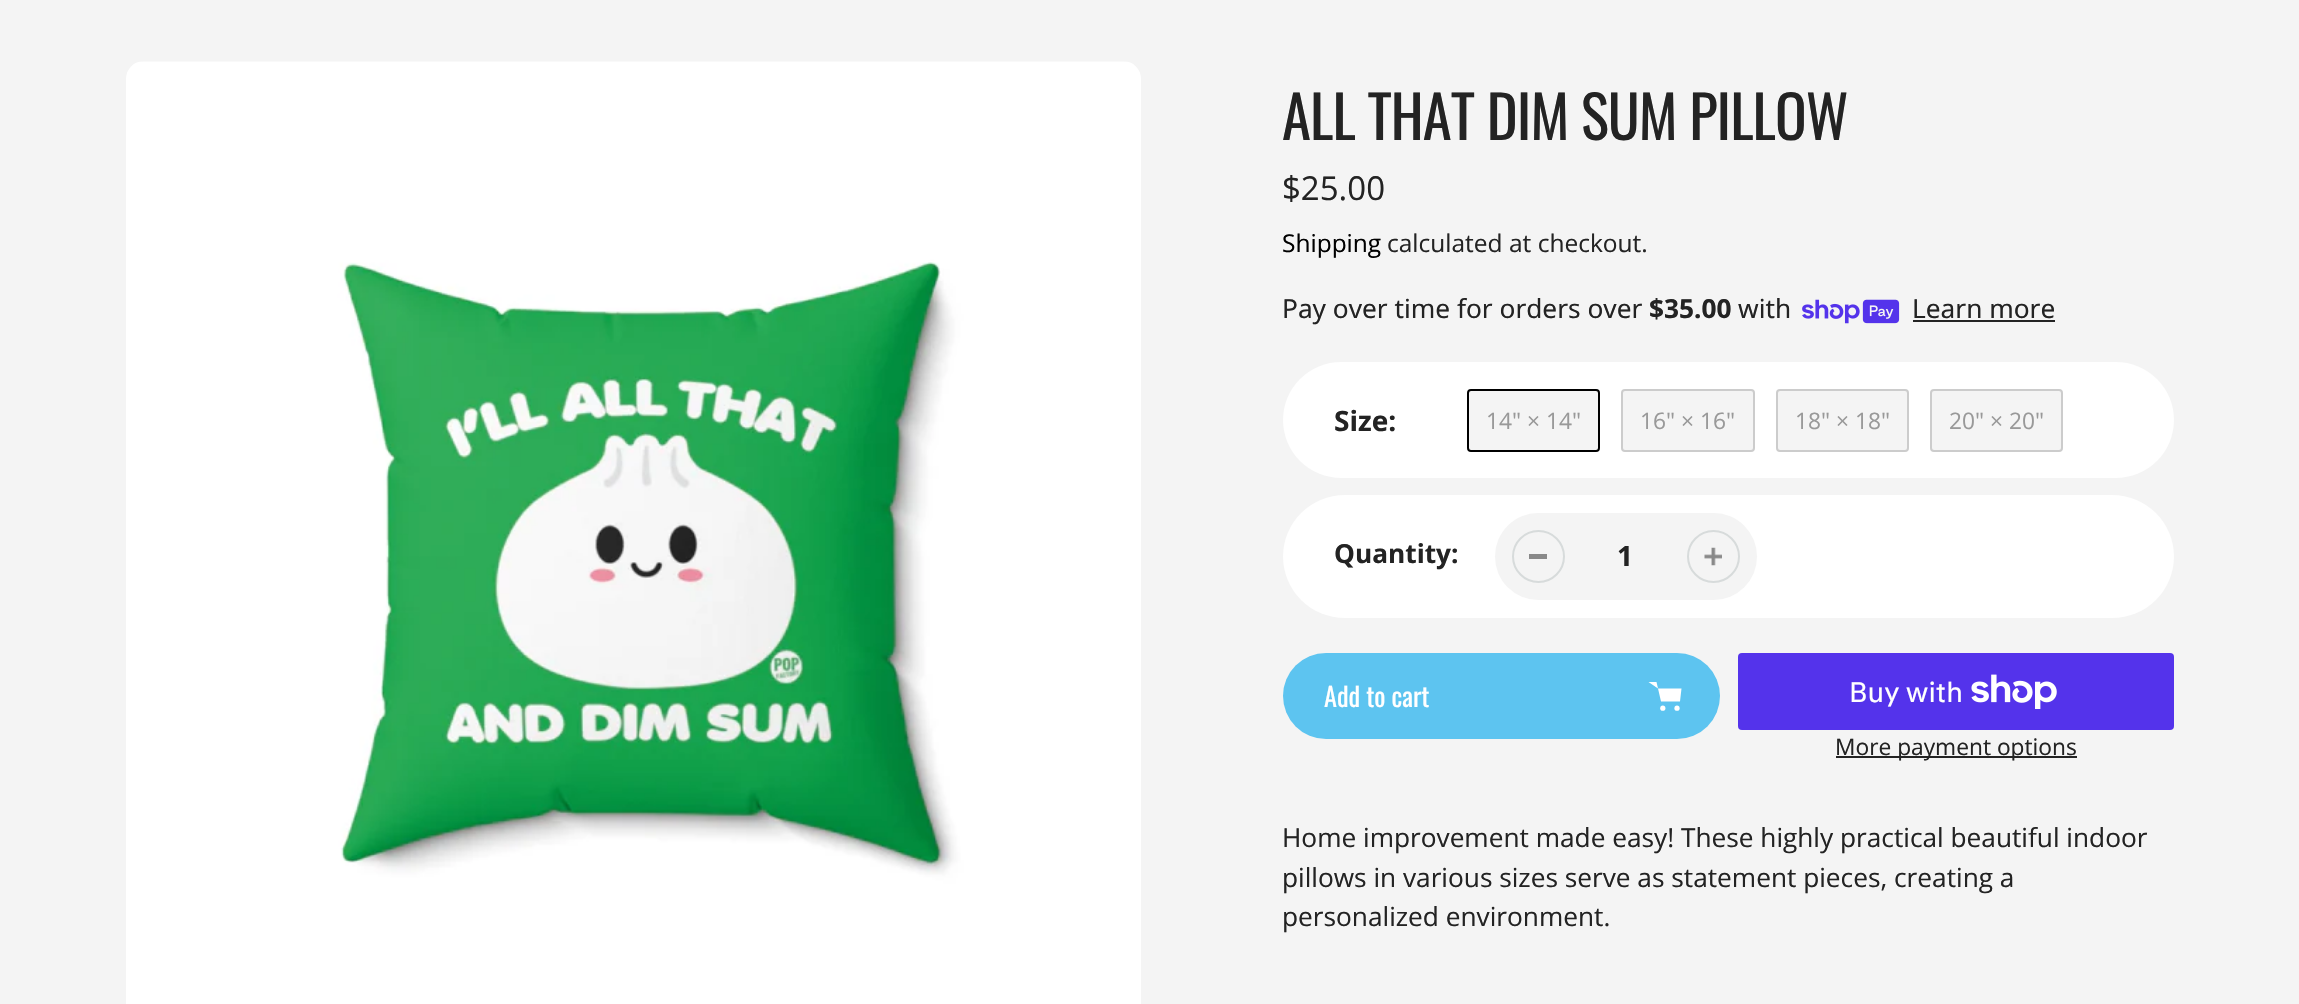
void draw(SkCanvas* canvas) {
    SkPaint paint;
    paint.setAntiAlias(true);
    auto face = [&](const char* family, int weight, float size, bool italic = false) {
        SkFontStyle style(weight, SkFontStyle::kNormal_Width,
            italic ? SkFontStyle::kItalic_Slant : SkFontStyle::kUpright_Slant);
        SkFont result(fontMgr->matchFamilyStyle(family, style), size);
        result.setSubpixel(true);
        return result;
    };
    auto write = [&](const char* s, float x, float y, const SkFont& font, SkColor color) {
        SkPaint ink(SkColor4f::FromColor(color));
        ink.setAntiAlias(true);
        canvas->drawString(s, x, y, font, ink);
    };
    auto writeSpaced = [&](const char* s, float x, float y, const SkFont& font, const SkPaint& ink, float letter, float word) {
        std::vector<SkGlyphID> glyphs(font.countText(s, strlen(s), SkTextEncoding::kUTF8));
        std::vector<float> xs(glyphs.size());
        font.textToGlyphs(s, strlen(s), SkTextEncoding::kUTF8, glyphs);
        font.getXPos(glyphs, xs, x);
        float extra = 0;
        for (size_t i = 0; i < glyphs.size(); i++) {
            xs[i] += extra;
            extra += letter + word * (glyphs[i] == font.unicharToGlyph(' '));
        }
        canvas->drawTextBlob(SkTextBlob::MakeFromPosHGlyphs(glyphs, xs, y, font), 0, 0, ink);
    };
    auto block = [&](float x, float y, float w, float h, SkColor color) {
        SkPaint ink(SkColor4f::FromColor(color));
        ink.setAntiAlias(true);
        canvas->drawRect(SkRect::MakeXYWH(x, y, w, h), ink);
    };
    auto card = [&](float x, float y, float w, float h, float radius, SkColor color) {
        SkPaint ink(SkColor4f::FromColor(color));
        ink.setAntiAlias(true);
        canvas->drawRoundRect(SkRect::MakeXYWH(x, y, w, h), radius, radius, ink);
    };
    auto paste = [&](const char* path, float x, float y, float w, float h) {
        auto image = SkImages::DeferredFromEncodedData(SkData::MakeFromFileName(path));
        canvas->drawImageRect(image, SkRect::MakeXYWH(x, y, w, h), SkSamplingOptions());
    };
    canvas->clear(SkColorSetRGB(244, 244, 244));
    paste("pic1.png", 126, 61, 1015, 943);
    auto kFont1 = face("Oswald", 400, 58.75f);
    paint.setColor(SkColorSetRGB(35, 35, 35));
    writeSpaced("ALL THAT DIM SUM PILLOW", 1282, 140, kFont1, paint, -0.9f, 0);
    auto kFont2 = face("Open Sans", 400, 33);
    write("$25.00", 1282, 200, kFont2, SkColorSetRGB(35, 35, 35));
    auto kFont3 = face("Open Sans", 400, 24.5f);
    write("Shipping", 1282, 252, kFont3, SK_ColorBLACK);
    write("calculated at checkout.", 1387, 252, kFont3, SkColorSetRGB(35, 35, 35));
    auto kFont4 = face("Noto Sans", 400, 26.25f);
    write("Pay over time for orders over", 1282, 318, kFont4, SkColorSetRGB(35, 35, 35));
    auto kFont5 = face("Noto Sans", 700, 26.25f);
    write("$35.00", 1649, 318, kFont5, SkColorSetRGB(35, 35, 35));
    write("with", 1738, 318, kFont4, SkColorSetRGB(35, 35, 35));
    paste("pic2.png", 1802, 299, 98, 25);
    write("Learn more", 1912, 318, kFont4, SkColorSetRGB(35, 35, 35));
    block(1913, 320, 142, 2, SkColorSetRGB(35, 35, 35));
    card(1283, 362, 891, 116, 58, SK_ColorWHITE);
    auto kFont6 = face("Open Sans", 700, 28);
    write("Size:", 1334, 431, kFont6, SkColorSetRGB(35, 35, 35));
    paint.setColor(SkColorSetRGB(244, 244, 244));
    canvas->drawRoundRect(SkRect::MakeXYWH(1468, 390, 131, 61), 3, 3, paint);
    paint.setStyle(SkPaint::kStroke_Style);
    paint.setStrokeWidth(2);
    paint.setColor(SK_ColorBLACK);
    canvas->drawRoundRect(SkRect::MakeXYWH(1468, 390, 131, 61), 3, 3, paint);
    auto kFont7 = face("Open Sans", 400, 22.75f);
    write("14\" × 14\"", 1486, 429, kFont7, SkColorSetRGB(153, 153, 153));
    paint.setStyle(SkPaint::kFill_Style);
    paint.setColor(SkColorSetRGB(244, 244, 244));
    canvas->drawRoundRect(SkRect::MakeXYWH(1622, 390, 132, 61), 3, 3, paint);
    paint.setStyle(SkPaint::kStroke_Style);
    paint.setColor(SkColorSetRGB(204, 204, 204));
    canvas->drawRoundRect(SkRect::MakeXYWH(1622, 390, 132, 61), 3, 3, paint);
    write("16\" × 16\"", 1640, 429, kFont7, SkColorSetRGB(153, 153, 153));
    paint.setStyle(SkPaint::kFill_Style);
    paint.setColor(SkColorSetRGB(244, 244, 244));
    canvas->drawRoundRect(SkRect::MakeXYWH(1777, 390, 131, 61), 3, 3, paint);
    paint.setStyle(SkPaint::kStroke_Style);
    paint.setColor(SkColorSetRGB(204, 204, 204));
    canvas->drawRoundRect(SkRect::MakeXYWH(1777, 390, 131, 61), 3, 3, paint);
    write("18\" × 18\"", 1795, 429, kFont7, SkColorSetRGB(153, 153, 153));
    paint.setStyle(SkPaint::kFill_Style);
    paint.setColor(SkColorSetRGB(244, 244, 244));
    canvas->drawRoundRect(SkRect::MakeXYWH(1931, 390, 131, 61), 3, 3, paint);
    paint.setStyle(SkPaint::kStroke_Style);
    paint.setColor(SkColorSetRGB(204, 204, 204));
    canvas->drawRoundRect(SkRect::MakeXYWH(1931, 390, 131, 61), 3, 3, paint);
    write("20\" × 20\"", 1949, 429, kFont7, SkColorSetRGB(153, 153, 153));
    card(1283, 495, 891, 123, 61.5f, SK_ColorWHITE);
    auto kFont8 = face("Open Sans", 700, 26.25f);
    write("Quantity:", 1334, 563, kFont8, SkColorSetRGB(35, 35, 35));
    card(1495, 513, 262, 87, 43.5f, SkColorSetRGB(244, 244, 244));
    block(1529, 554, 18, 5, SkColorSetRGB(137, 137, 137));
    paint.setColor(SkColorSetRGB(215, 219, 219));
    canvas->drawCircle(1538.5f, 556.5f, 25.5f, paint);
    write("1", 1617, 566, kFont6, SkColorSetRGB(35, 35, 35));
    paste("pic3.png", 1704, 547, 18, 19);
    canvas->drawCircle(1713.5f, 556.5f, 25.5f, paint);
    card(1283, 653, 437, 86, 43, SkColorSetRGB(93, 196, 240));
    auto kFont9 = face("Oswald", 400, 26.25f);
    write("Add to cart", 1324, 707, kFont9, SK_ColorWHITE);
    paint.setStyle(SkPaint::kFill_Style);
    paint.setColor(SK_ColorWHITE);
    canvas->drawCircle(1662.8f, 708.2f, 2.6f, paint);
    canvas->drawCircle(1677, 708.2f, 2.6f, paint);
    canvas->drawPath(SkPathBuilder(SkPathFillType::kEvenOdd).moveTo(1658, 688.5f).lineTo(1681.5f, 688.5f).lineTo(1680, 701.5f).lineTo(1661, 701.5f).lineTo(1656.5f, 682).lineTo(1648.5f, 682).detach(), paint);
    card(1738, 653, 436, 77, 4, SkColorSetRGB(84, 51, 235));
    auto kFont10 = face("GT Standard", 400, 28);
    write("Buy with", 1849, 702, kFont10, SK_ColorWHITE);
    paste("pic4.png", 1971, 674, 86, 35);
    block(1836, 756, 241, 2, SkColorSetRGB(35, 35, 35));
    write("More payment options", 1835, 755, kFont7, SkColorSetRGB(35, 35, 35));
    auto kFont11 = face("Open Sans", 400, 26.25f);
    write("Home improvement made easy! These highly practical beautiful indoor", 1282, 847, kFont11, SkColorSetRGB(35, 35, 35));
    write("pillows in various sizes serve as statement pieces, creating a", 1282, 887, kFont11, SkColorSetRGB(35, 35, 35));
    write("personalized environment.", 1282, 926, kFont11, SkColorSetRGB(35, 35, 35));
}
